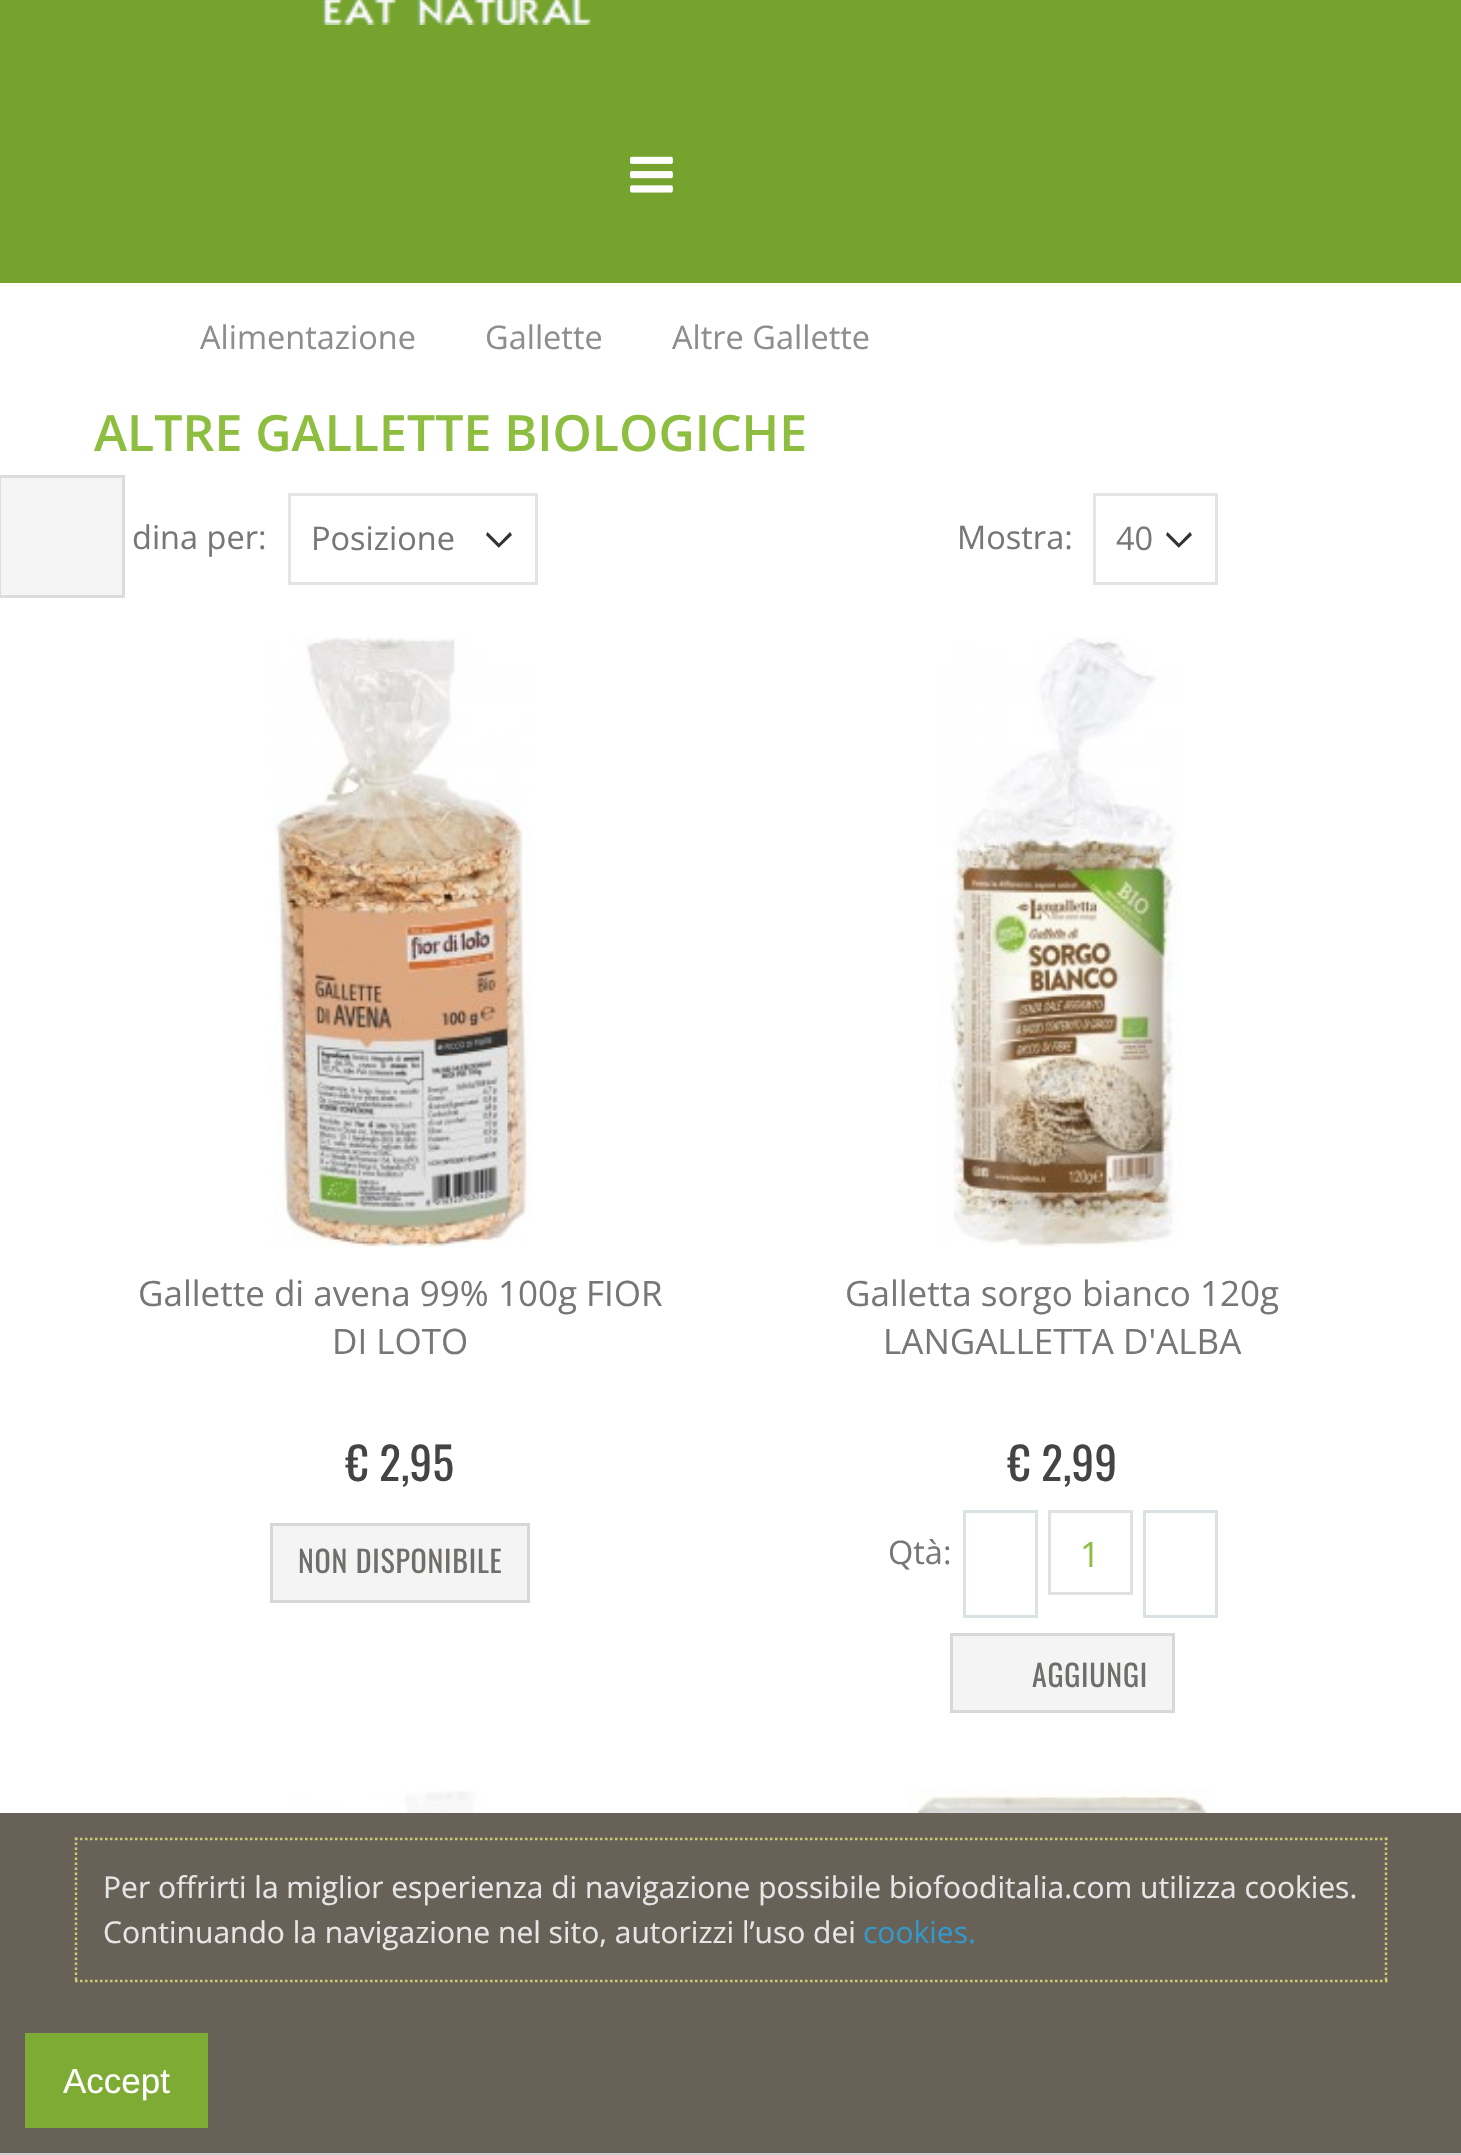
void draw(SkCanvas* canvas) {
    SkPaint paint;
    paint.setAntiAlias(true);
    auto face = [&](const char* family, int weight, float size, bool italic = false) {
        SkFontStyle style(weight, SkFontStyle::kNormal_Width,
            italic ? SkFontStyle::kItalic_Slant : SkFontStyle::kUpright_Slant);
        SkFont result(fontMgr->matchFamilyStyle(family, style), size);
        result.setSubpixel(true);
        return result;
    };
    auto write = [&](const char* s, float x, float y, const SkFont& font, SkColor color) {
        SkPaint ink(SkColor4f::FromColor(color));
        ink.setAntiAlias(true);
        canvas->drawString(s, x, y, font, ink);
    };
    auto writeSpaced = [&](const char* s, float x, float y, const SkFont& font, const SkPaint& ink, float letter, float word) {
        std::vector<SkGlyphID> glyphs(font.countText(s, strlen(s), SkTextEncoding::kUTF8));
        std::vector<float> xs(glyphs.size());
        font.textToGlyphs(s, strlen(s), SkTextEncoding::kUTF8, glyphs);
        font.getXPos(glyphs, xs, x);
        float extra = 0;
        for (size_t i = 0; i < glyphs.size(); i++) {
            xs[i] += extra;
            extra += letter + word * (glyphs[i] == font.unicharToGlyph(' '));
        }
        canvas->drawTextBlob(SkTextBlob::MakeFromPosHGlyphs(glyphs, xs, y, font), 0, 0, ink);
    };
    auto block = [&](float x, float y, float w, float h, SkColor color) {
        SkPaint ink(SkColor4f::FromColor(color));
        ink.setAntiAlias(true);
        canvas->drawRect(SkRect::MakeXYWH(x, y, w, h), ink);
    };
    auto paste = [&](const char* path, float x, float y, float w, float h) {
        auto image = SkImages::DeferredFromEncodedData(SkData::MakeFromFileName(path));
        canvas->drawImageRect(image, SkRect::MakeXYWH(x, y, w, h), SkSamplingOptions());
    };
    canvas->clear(SK_ColorWHITE);
    block(0, 0, 1461, 283, SkColorSetRGB(118, 162, 46));
    paste("pic1.png", 322, 0, 269, 25);
    paste("pic2.png", 630, 156, 43, 37);
    auto kFont1 = face("Open Sans", 400, 32.5f);
    write("Alimentazione", 200, 349, kFont1, SkColorSetRGB(142, 142, 142));
    write("Gallette", 485, 349, kFont1, SkColorSetRGB(142, 142, 142));
    write("Altre Gallette", 672, 349, kFont1, SkColorSetRGB(142, 142, 142));
    paint.setColor(SkColorSetRGB(245, 245, 245));
    canvas->drawRect(SkRect::MakeXYWH(-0.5f, 476.5f, 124, 120), paint);
    paint.setStyle(SkPaint::kStroke_Style);
    paint.setStrokeWidth(3);
    paint.setColor(SkColorSetRGB(220, 220, 218));
    canvas->drawRect(SkRect::MakeXYWH(-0.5f, 476.5f, 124, 120), paint);
    auto kFont2 = face("Open Sans", 600, 50);
    write("ALTRE GALLETTE BIOLOGICHE", 94, 451, kFont2, SkColorSetRGB(141, 190, 63));
    write("dina per:", 132, 549, kFont1, SkColorSetRGB(119, 119, 119));
    paint.setStyle(SkPaint::kFill_Style);
    paint.setColor(SkColorSetRGB(51, 51, 51));
    canvas->drawPath(SkPathBuilder(SkPathFillType::kEvenOdd).moveTo(499, 547.5f).lineTo(512, 535).lineTo(510, 532).lineTo(499, 543.5f).lineTo(487.5f, 532).lineTo(486, 535).lineTo(499, 548).close().detach(), paint);
    paint.setStyle(SkPaint::kStroke_Style);
    paint.setColor(SkColorSetRGB(228, 228, 228));
    canvas->drawRect(SkRect::MakeXYWH(289.5f, 494.5f, 247, 89), paint);
    write("Posizione", 311, 550, kFont1, SkColorSetRGB(119, 119, 119));
    write("Mostra:", 957, 549, kFont1, SkColorSetRGB(119, 119, 119));
    paint.setStyle(SkPaint::kFill_Style);
    paint.setColor(SkColorSetRGB(51, 51, 51));
    canvas->drawPath(SkPathBuilder(SkPathFillType::kEvenOdd).moveTo(1179, 547.5f).lineTo(1192, 535).lineTo(1190, 532).lineTo(1179, 543.5f).lineTo(1167.5f, 532).lineTo(1166, 535).lineTo(1179, 548).close().detach(), paint);
    paint.setStyle(SkPaint::kStroke_Style);
    paint.setColor(SkColorSetRGB(228, 228, 228));
    canvas->drawRect(SkRect::MakeXYWH(1094.5f, 494.5f, 122, 89), paint);
    write("40", 1116, 550, kFont1, SkColorSetRGB(119, 119, 119));
    paste("pic3.png", 269, 637, 263, 611);
    auto kFont3 = face("Open Sans", 400, 35);
    write("Gallette di avena 99% 100g FIOR", 138, 1306, kFont3, SkColorSetRGB(119, 119, 119));
    write("DI LOTO", 332, 1354, kFont3, SkColorSetRGB(119, 119, 119));
    auto kFont4 = face("Oswald", 400, 45);
    paint.setStyle(SkPaint::kFill_Style);
    paint.setColor(SkColorSetRGB(68, 68, 68));
    writeSpaced("€ 2,95", 346, 1481, kFont4, paint, 0.25f, 0);
    paint.setColor(SkColorSetRGB(244, 244, 244));
    canvas->drawRect(SkRect::MakeXYWH(271.5f, 1524.5f, 257, 77), paint);
    paint.setStyle(SkPaint::kStroke_Style);
    paint.setColor(SkColorSetRGB(216, 216, 214));
    canvas->drawRect(SkRect::MakeXYWH(271.5f, 1524.5f, 257, 77), paint);
    auto kFont5 = face("Oswald", 400, 30);
    paint.setStyle(SkPaint::kFill_Style);
    paint.setColor(SkColorSetRGB(111, 110, 107));
    writeSpaced("NON DISPONIBILE", 298, 1573, kFont5, paint, 0.75f, 0);
    paste("pic4.png", 938, 637, 244, 610);
    write("Galletta sorgo bianco 120g", 845, 1306, kFont3, SkColorSetRGB(119, 119, 119));
    write("LANGALLETTA D'ALBA", 883, 1354, kFont3, SkColorSetRGB(119, 119, 119));
    paint.setColor(SkColorSetRGB(68, 68, 68));
    writeSpaced("€ 2,99", 1008, 1481, kFont4, paint, 0.25f, 0);
    write("Qtà:", 888, 1564, kFont1, SkColorSetRGB(119, 119, 119));
    paint.setStyle(SkPaint::kStroke_Style);
    paint.setColor(SkColorSetRGB(218, 226, 230));
    canvas->drawRect(SkRect::MakeXYWH(964.5f, 1511.5f, 72, 105), paint);
    canvas->drawRect(SkRect::MakeXYWH(1144.5f, 1511.5f, 72, 105), paint);
    paint.setColor(SkColorSetRGB(225, 225, 225));
    canvas->drawRect(SkRect::MakeXYWH(1049.5f, 1511.5f, 82, 82), paint);
    write("1", 1080, 1567, kFont3, SkColorSetRGB(141, 190, 63));
    paint.setStyle(SkPaint::kFill_Style);
    paint.setColor(SkColorSetRGB(244, 244, 244));
    canvas->drawRect(SkRect::MakeXYWH(951.5f, 1634.5f, 222, 77), paint);
    paint.setStyle(SkPaint::kStroke_Style);
    paint.setColor(SkColorSetRGB(216, 216, 214));
    canvas->drawRect(SkRect::MakeXYWH(951.5f, 1634.5f, 222, 77), paint);
    paint.setStyle(SkPaint::kFill_Style);
    paint.setColor(SkColorSetRGB(111, 110, 107));
    writeSpaced("AGGIUNGI", 1032, 1687, kFont5, paint, 0.75f, 0);
    paste("pic5.png", 290, 1791, 222, 22);
    paste("pic6.png", 907, 1788, 309, 25);
    block(0, 1813, 1461, 340, SkColorSetRGB(103, 97, 87));
    block(0, 2153, 1461, 2, SkColorSetRGB(207, 207, 207));
    paint.setStyle(SkPaint::kStroke_Style);
    paint.setStrokeWidth(2.5f);
    paint.setColor(SkColorSetRGB(204, 204, 115));
    paint.setPathEffect(SkDashPathEffect::Make({{2.5f, 2.5f}}, 0));
    canvas->drawPath(SkPathBuilder().moveTo(75, 1839).lineTo(1387.5f, 1839).detach(), paint);
    paint.setPathEffect(nullptr);
    paint.setPathEffect(SkDashPathEffect::Make({{2.5f, 2.5f}}, 0));
    canvas->drawPath(SkPathBuilder().moveTo(1386, 1837.5f).lineTo(1386, 1982.5f).detach(), paint);
    paint.setPathEffect(nullptr);
    paint.setPathEffect(SkDashPathEffect::Make({{2.5f, 2.5f}}, 0));
    canvas->drawPath(SkPathBuilder().moveTo(75, 1981).lineTo(1387.5f, 1981).detach(), paint);
    paint.setPathEffect(nullptr);
    paint.setPathEffect(SkDashPathEffect::Make({{2.5f, 2.5f}}, 0));
    canvas->drawPath(SkPathBuilder().moveTo(76, 1837.5f).lineTo(76, 1982.5f).detach(), paint);
    paint.setPathEffect(nullptr);
    auto kFont6 = face("Open Sans", 400, 30);
    write("Per offrirti la miglior esperienza di navigazione possibile biofooditalia.com utilizza cookies.", 103, 1898, kFont6, SkColorSetRGB(230, 230, 230));
    write("Continuando la navigazione nel sito, autorizzi l’uso dei", 103, 1943, kFont6, SkColorSetRGB(230, 230, 230));
    write("cookies.", 863, 1943, kFont6, SkColorSetRGB(51, 153, 204));
    block(25, 2033, 183, 95, SkColorSetRGB(125, 171, 52));
    auto kFont7 = face("Liberation Sans", 400, 35);
    write("Accept", 63, 2093, kFont7, SK_ColorWHITE);
}
